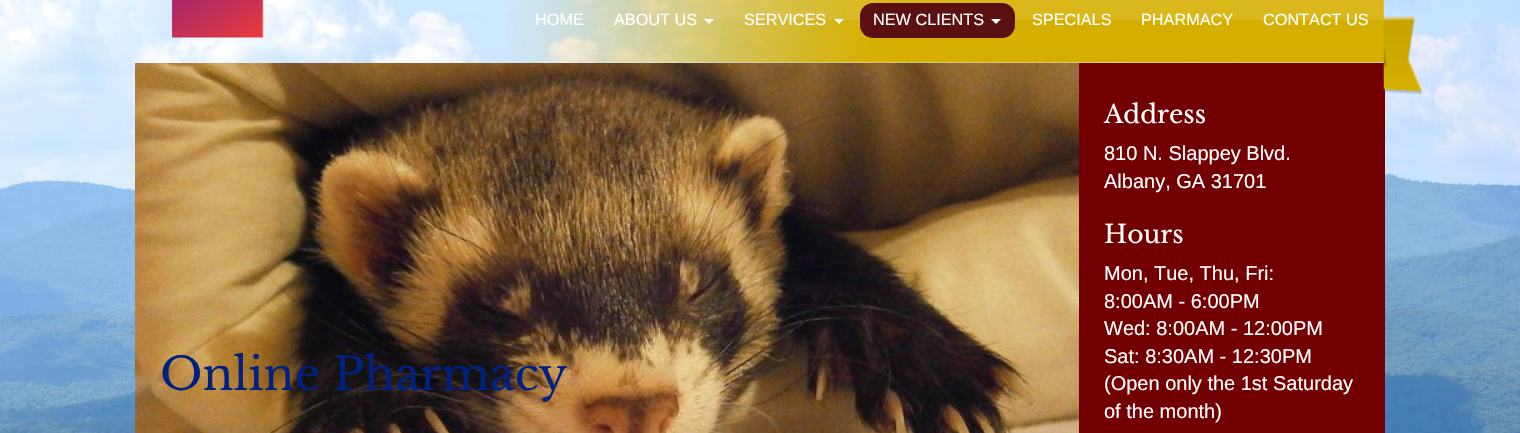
void draw(SkCanvas* canvas) {
    SkPaint paint;
    paint.setAntiAlias(true);
    auto face = [&](const char* family, int weight, float size, bool italic = false) {
        SkFontStyle style(weight, SkFontStyle::kNormal_Width,
            italic ? SkFontStyle::kItalic_Slant : SkFontStyle::kUpright_Slant);
        SkFont result(fontMgr->matchFamilyStyle(family, style), size);
        result.setSubpixel(true);
        return result;
    };
    auto write = [&](const char* s, float x, float y, const SkFont& font, SkColor color) {
        SkPaint ink(SkColor4f::FromColor(color));
        ink.setAntiAlias(true);
        canvas->drawString(s, x, y, font, ink);
    };
    auto block = [&](float x, float y, float w, float h, SkColor color) {
        SkPaint ink(SkColor4f::FromColor(color));
        ink.setAntiAlias(true);
        canvas->drawRect(SkRect::MakeXYWH(x, y, w, h), ink);
    };
    auto card = [&](float x, float y, float w, float h, float radius, SkColor color) {
        SkPaint ink(SkColor4f::FromColor(color));
        ink.setAntiAlias(true);
        canvas->drawRoundRect(SkRect::MakeXYWH(x, y, w, h), radius, radius, ink);
    };
    auto paste = [&](const char* path, float x, float y, float w, float h) {
        auto image = SkImages::DeferredFromEncodedData(SkData::MakeFromFileName(path));
        canvas->drawImageRect(image, SkRect::MakeXYWH(x, y, w, h), SkSamplingOptions());
    };
    canvas->clear(SK_ColorWHITE);
    paste("pic1.png", 0, 0, 1520, 433);
    paste("pic2.png", 171, 0, 93, 38);
    paste("pic4.png", 135, 63, 944, 370);
    block(1079, 63, 306, 370, SkColorSetRGB(114, 0, 2));
    paste("pic3.png", 507, 0, 916, 94);
    auto kFont1 = face("Liberation Sans", 400, 16.25f);
    write("HOME", 535, 25, kFont1, SK_ColorWHITE);
    write("ABOUT US", 614, 25, kFont1, SK_ColorWHITE);
    paint.setColor(SK_ColorWHITE);
    canvas->drawPath(SkPathBuilder().moveTo(704, 19).lineTo(714, 19).lineTo(709, 24).close().detach(), paint);
    write("SERVICES", 744, 25, kFont1, SK_ColorWHITE);
    canvas->drawPath(SkPathBuilder().moveTo(834, 19).lineTo(844, 19).lineTo(839, 24).close().detach(), paint);
    card(860, 3, 155, 35, 13, SkColorSetRGB(91, 17, 18));
    write("NEW CLIENTS", 873, 25, kFont1, SK_ColorWHITE);
    canvas->drawPath(SkPathBuilder().moveTo(991, 19).lineTo(1001, 19).lineTo(996, 24).close().detach(), paint);
    write("SPECIALS", 1032, 25, kFont1, SK_ColorWHITE);
    write("PHARMACY", 1141, 25, kFont1, SK_ColorWHITE);
    write("CONTACT US", 1263, 25, kFont1, SK_ColorWHITE);
    auto kFont2 = face("Libre Baskerville", 400, 45);
    write("Online Pharmacy", 160, 390, kFont2, SkColorSetRGB(0, 33, 127));
    auto kFont3 = face("Libre Baskerville", 400, 25);
    write("Address", 1104, 123, kFont3, SK_ColorWHITE);
    auto kFont4 = face("Liberation Sans", 400, 20);
    write("810 N. Slappey Blvd.", 1104, 160, kFont4, SK_ColorWHITE);
    write("Albany, GA 31701", 1104, 188, kFont4, SK_ColorWHITE);
    write("Hours", 1104, 243, kFont3, SK_ColorWHITE);
    write("Mon, Tue, Thu, Fri:", 1104, 280, kFont4, SK_ColorWHITE);
    write("8:00AM - 6:00PM", 1104, 308, kFont4, SK_ColorWHITE);
    write("Wed: 8:00AM - 12:00PM", 1104, 335, kFont4, SK_ColorWHITE);
    write("Sat: 8:30AM - 12:30PM", 1104, 363, kFont4, SK_ColorWHITE);
    write("(Open only the 1st Saturday", 1104, 390, kFont4, SK_ColorWHITE);
    write("of the month)", 1104, 418, kFont4, SK_ColorWHITE);
}
